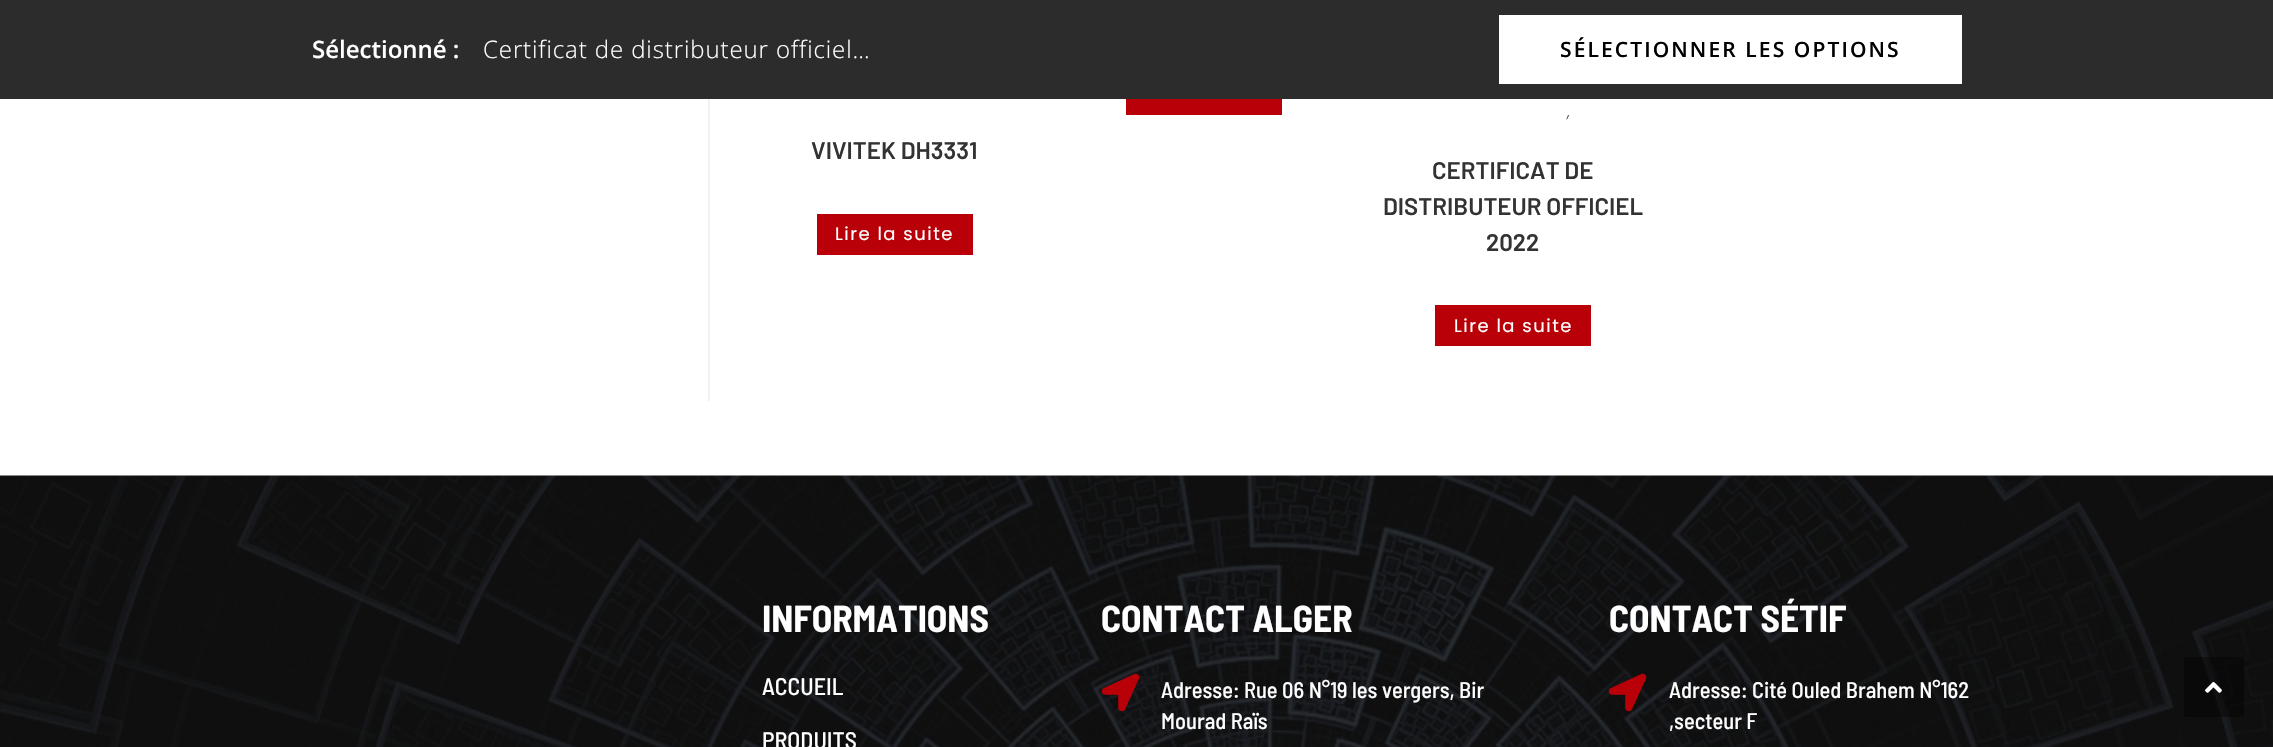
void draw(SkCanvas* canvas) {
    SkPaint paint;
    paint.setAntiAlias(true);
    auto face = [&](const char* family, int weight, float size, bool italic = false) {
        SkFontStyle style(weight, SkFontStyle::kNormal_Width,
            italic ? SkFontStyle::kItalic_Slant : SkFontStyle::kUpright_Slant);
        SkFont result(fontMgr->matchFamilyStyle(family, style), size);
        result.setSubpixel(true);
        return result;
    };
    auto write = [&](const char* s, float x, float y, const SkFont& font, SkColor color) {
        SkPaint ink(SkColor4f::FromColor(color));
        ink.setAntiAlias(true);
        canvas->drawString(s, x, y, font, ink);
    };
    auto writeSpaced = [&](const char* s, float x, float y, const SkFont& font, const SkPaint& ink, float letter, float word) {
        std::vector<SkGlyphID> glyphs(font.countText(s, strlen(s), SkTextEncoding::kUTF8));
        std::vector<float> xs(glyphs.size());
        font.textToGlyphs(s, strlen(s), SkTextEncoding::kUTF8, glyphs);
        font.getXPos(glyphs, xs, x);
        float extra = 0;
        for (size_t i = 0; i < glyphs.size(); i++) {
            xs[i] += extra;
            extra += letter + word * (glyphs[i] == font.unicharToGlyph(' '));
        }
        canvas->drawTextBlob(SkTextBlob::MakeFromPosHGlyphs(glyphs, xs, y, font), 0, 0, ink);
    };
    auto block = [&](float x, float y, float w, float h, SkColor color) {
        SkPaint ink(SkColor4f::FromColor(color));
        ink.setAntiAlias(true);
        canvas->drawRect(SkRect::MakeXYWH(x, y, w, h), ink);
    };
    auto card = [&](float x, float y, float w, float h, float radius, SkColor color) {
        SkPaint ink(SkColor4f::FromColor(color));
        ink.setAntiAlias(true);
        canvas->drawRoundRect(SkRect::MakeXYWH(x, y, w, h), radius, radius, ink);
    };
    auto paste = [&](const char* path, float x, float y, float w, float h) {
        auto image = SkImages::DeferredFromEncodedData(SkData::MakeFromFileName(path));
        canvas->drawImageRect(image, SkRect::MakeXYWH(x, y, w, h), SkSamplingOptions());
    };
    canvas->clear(SK_ColorWHITE);
    block(0, 0, 2273, 99, SkColorSetRGB(44, 44, 44));
    auto kFont1 = face("Open Sans", 600, 24);
    write("Sélectionné :", 312, 58, kFont1, SK_ColorWHITE);
    auto kFont2 = face("Open Sans", 300, 24);
    paint.setColor(SK_ColorWHITE);
    writeSpaced("Certificat de distributeur officiel…", 483, 58, kFont2, paint, 0.9f, 0);
    block(1499, 15, 463, 69, SK_ColorWHITE);
    auto kFont3 = face("Open Sans", 600, 21);
    paint.setColor(SK_ColorBLACK);
    writeSpaced("SÉLECTIONNER LES OPTIONS", 1560, 57, kFont3, paint, 2.1f, 0);
    block(708, 99, 2, 302, SkColorSetRGB(241, 241, 241));
    block(1126, 99, 156, 16, SkColorSetRGB(185, 0, 8));
    auto kFont4 = face("Barlow", 600, 24);
    write("VIVITEK DH3331", 811, 159, kFont4, SkColorSetRGB(51, 51, 51));
    block(817, 214, 156, 41, SkColorSetRGB(185, 0, 8));
    auto kFont5 = face("Poppins", 400, 18);
    paint.setColor(SK_ColorWHITE);
    writeSpaced("Lire la suite", 835, 240, kFont5, paint, 1.5f, 0);
    auto kFont6 = face("Open Sans", 300, 18, true);
    write(",", 1567, 117, kFont6, SkColorSetRGB(74, 74, 74));
    write("CERTIFICAT DE", 1432, 179, kFont4, SkColorSetRGB(51, 51, 51));
    write("DISTRIBUTEUR OFFICIEL", 1383, 215, kFont4, SkColorSetRGB(51, 51, 51));
    write("2022", 1486, 251, kFont4, SkColorSetRGB(51, 51, 51));
    block(1435, 305, 156, 41, SkColorSetRGB(185, 0, 8));
    writeSpaced("Lire la suite", 1454, 332, kFont5, paint, 1.5f, 0);
    paste("pic1.png", 0, 475, 2273, 272);
    auto kFont7 = face("Barlow Semi Condensed", 700, 37.5f);
    write("INFORMATIONS", 762, 632, kFont7, SK_ColorWHITE);
    auto kFont8 = face("Barlow Semi Condensed", 500, 24);
    write("ACCUEIL", 762, 695, kFont8, SK_ColorWHITE);
    write("PRODUITS", 762, 749, kFont8, SK_ColorWHITE);
    write("CONTACT ALGER", 1101, 632, kFont7, SK_ColorWHITE);
    paste("pic2.png", 1101, 673, 39, 39);
    auto kFont9 = face("Barlow Semi Condensed", 500, 22.5f);
    write("Adresse: Rue 06 N°19 les vergers, Bir", 1161, 698, kFont9, SK_ColorWHITE);
    write("Mourad Raïs", 1161, 729, kFont9, SK_ColorWHITE);
    write("CONTACT SÉTIF", 1609, 632, kFont7, SK_ColorWHITE);
    paste("pic3.png", 1608, 673, 39, 39);
    write("Adresse: Cité Ouled Brahem N°162", 1669, 698, kFont9, SK_ColorWHITE);
    write(",secteur F", 1669, 729, kFont9, SK_ColorWHITE);
    card(2184, 657, 60, 60, 3, SkColorSetARGB(102, 0, 0, 0));
    paste("pic4.png", 2205, 682, 17, 11);
}
